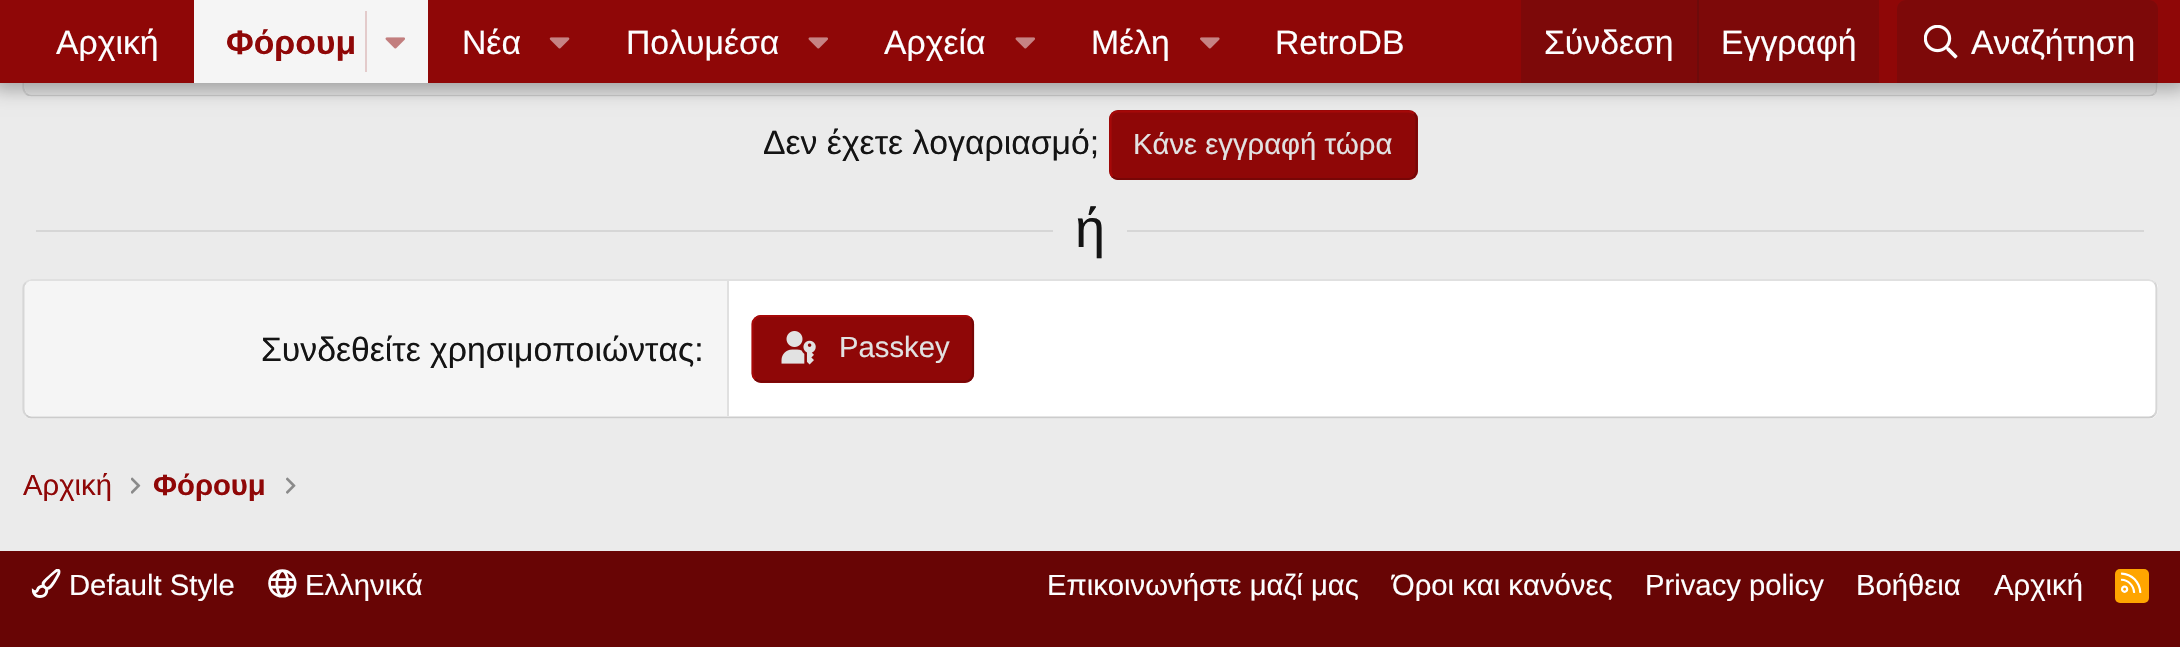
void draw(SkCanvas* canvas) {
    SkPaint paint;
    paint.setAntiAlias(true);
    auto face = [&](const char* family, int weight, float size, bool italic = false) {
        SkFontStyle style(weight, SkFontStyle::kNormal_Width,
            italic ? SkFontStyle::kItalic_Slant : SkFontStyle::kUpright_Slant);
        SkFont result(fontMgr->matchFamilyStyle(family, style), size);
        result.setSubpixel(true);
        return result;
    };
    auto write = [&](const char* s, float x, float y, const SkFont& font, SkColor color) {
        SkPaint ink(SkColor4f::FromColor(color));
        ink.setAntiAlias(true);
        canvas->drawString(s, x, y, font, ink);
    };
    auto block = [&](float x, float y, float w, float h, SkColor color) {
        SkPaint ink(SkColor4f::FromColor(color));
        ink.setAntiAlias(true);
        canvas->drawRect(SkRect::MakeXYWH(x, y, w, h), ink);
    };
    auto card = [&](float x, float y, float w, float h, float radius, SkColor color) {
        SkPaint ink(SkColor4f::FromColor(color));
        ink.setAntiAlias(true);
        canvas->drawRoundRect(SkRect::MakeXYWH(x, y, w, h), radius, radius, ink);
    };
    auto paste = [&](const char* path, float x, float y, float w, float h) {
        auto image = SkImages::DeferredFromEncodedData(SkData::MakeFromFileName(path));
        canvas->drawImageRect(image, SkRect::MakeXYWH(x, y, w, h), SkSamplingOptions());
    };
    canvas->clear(SkColorSetRGB(235, 235, 235));
    card(23, -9, 2135, 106, 9, SK_ColorWHITE);
    paint.setStyle(SkPaint::kStroke_Style);
    paint.setStrokeWidth(2.2f);
    paint.setColor(SkColorSetRGB(214, 214, 214));
    canvas->drawPath(SkPathBuilder().moveTo(2154.5f, -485).cubicTo(2156, -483.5f, 2156.5f, -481.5f, 2156.5f, -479).lineTo(2156.5f, 88).cubicTo(2156.5f, 90, 2156, 92, 2154.5f, 93.5f).detach(), paint);
    paint.setColor(SkColorSetRGB(204, 204, 204));
    canvas->drawPath(SkPathBuilder().moveTo(2154.5f, 93.5f).cubicTo(2153, 95, 2151, 95.5f, 2149, 95.5f).lineTo(31.5f, 95.5f).cubicTo(29.5f, 95.5f, 27.5f, 95, 26, 93.5f).detach(), paint);
    paint.setColor(SkColorSetRGB(214, 214, 214));
    canvas->drawPath(SkPathBuilder().moveTo(26, 93.5f).cubicTo(24.5f, 92, 23.5f, 90, 23.5f, 88).lineTo(23.5f, -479).cubicTo(23.5f, -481.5f, 24.5f, -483.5f, 26, -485).detach(), paint);
    paint.setStyle(SkPaint::kFill_Style);
    paint.setColor(SkColorSetARGB(230, 226, 226, 226));
    canvas->drawPath(SkPathBuilder().moveTo(25, 0).lineTo(2156, 0).lineTo(2156, 88).cubicTo(2156, 92, 2153, 95, 2149, 95).lineTo(32, 95).cubicTo(28, 95, 25, 92, 25, 88).close().detach(), paint);
    card(1109, 110, 309, 70, 9, SkColorSetRGB(143, 7, 7));
    paint.setStyle(SkPaint::kStroke_Style);
    paint.setColor(SkColorSetRGB(119, 6, 6));
    canvas->drawPath(SkPathBuilder().moveTo(1414, 113.5f).cubicTo(1415.5f, 115, 1416.5f, 117, 1416.5f, 119).lineTo(1416.5f, 171).cubicTo(1416.5f, 173, 1415.5f, 175, 1414, 176.5f).cubicTo(1412.5f, 178, 1410.5f, 179, 1408.5f, 179).lineTo(1118, 179).cubicTo(1116, 179, 1114, 178, 1112.5f, 176.5f).detach(), paint);
    paint.setColor(SkColorSetRGB(167, 8, 8));
    canvas->drawPath(SkPathBuilder().moveTo(1112.5f, 176.5f).cubicTo(1111, 175, 1110.5f, 173, 1110.5f, 171).lineTo(1110.5f, 119).cubicTo(1110.5f, 117, 1111, 115, 1112.5f, 113.5f).cubicTo(1114, 112, 1116, 111.5f, 1118, 111.5f).lineTo(1408.5f, 111.5f).cubicTo(1410.5f, 111.5f, 1412.5f, 112, 1414, 113.5f).detach(), paint);
    paint.setStyle(SkPaint::kFill_Style);
    paint.setColor(SkColorSetARGB(77, 0, 0, 0));
    paint.setMaskFilter(SkMaskFilter::MakeBlur(kNormal_SkBlurStyle, 9));
    canvas->drawRect(SkRect::MakeXYWH(-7, -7, 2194, 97), paint);
    paint.setMaskFilter(nullptr);
    block(0, 0, 2180, 83, SkColorSetRGB(143, 7, 7));
    auto kFont1 = face("Liberation Sans", 400, 33.75f);
    write("Αρχική", 56, 54, kFont1, SkColorSetRGB(253, 254, 255));
    block(194, 0, 234, 83, SkColorSetRGB(245, 245, 245));
    auto kFont2 = face("Liberation Sans", 700, 33.75f);
    write("Φόρουμ", 226, 54, kFont2, SkColorSetRGB(143, 7, 7));
    block(365, 11, 2, 61, SkColorSetRGB(227, 203, 203));
    paste("pic1.png", 385, 37, 20, 12);
    write("Νέα", 462, 54, kFont1, SkColorSetRGB(253, 254, 255));
    paste("pic2.png", 549, 37, 21, 12);
    write("Πολυμέσα", 626, 54, kFont1, SkColorSetRGB(253, 254, 255));
    paste("pic3.png", 808, 37, 20, 12);
    write("Αρχεία", 884, 54, kFont1, SkColorSetRGB(253, 254, 255));
    paste("pic3.png", 1015, 37, 20, 12);
    write("Μέλη", 1091, 54, kFont1, SkColorSetRGB(253, 254, 255));
    paste("pic4.png", 1200, 37, 20, 12);
    write("RetroDB", 1275, 54, kFont1, SkColorSetRGB(253, 254, 255));
    block(1521, 0, 358, 83, SkColorSetRGB(125, 9, 9));
    write("Σύνδεση", 1544, 54, kFont1, SkColorSetRGB(253, 254, 255));
    block(1697, 0, 2, 83, SkColorSetRGB(109, 11, 11));
    write("Εγγραφή", 1721, 54, kFont1, SkColorSetRGB(253, 254, 255));
    paint.setColor(SkColorSetRGB(125, 9, 9));
    canvas->drawPath(SkPathBuilder().moveTo(1906, 0).lineTo(2149, 0).cubicTo(2154, 0, 2158, 4, 2158, 9).lineTo(2158, 83).lineTo(1897, 83).lineTo(1897, 9).cubicTo(1897, 4, 1901, 0, 1906, 0).close().detach(), paint);
    paste("pic5.png", 1924, 25, 34, 34);
    write("Αναζήτηση", 1971, 54, kFont1, SkColorSetRGB(253, 254, 255));
    write("Δεν έχετε λογαριασμό;", 763, 154, kFont1, SkColorSetRGB(20, 20, 20));
    auto kFont3 = face("Liberation Sans", 400, 29.25f);
    write("Κάνε εγγραφή τώρα", 1133, 154, kFont3, SkColorSetRGB(226, 226, 226));
    block(36, 230, 1017, 2, SkColorSetRGB(214, 214, 214));
    auto kFont4 = face("Liberation Sans", 400, 54);
    write("ή", 1075, 247, kFont4, SkColorSetRGB(20, 20, 20));
    block(1127, 230, 1017, 2, SkColorSetRGB(214, 214, 214));
    card(23, 279, 2135, 140, 9, SK_ColorWHITE);
    paint.setStyle(SkPaint::kStroke_Style);
    paint.setColor(SkColorSetRGB(224, 224, 224));
    canvas->drawPath(SkPathBuilder().moveTo(26, 282.5f).cubicTo(27.5f, 281, 29.5f, 280, 31.5f, 280).lineTo(2149, 280).cubicTo(2151, 280, 2153, 281, 2154.5f, 282.5f).detach(), paint);
    paint.setColor(SkColorSetRGB(214, 214, 214));
    canvas->drawPath(SkPathBuilder().moveTo(2154.5f, 282.5f).cubicTo(2156, 284, 2156.5f, 286, 2156.5f, 288).lineTo(2156.5f, 409.5f).cubicTo(2156.5f, 411.5f, 2156, 413.5f, 2154.5f, 415).detach(), paint);
    paint.setColor(SkColorSetRGB(204, 204, 204));
    canvas->drawPath(SkPathBuilder().moveTo(2154.5f, 415).cubicTo(2153, 416.5f, 2151, 417.5f, 2149, 417.5f).lineTo(31.5f, 417.5f).cubicTo(29.5f, 417.5f, 27.5f, 416.5f, 26, 415).detach(), paint);
    paint.setColor(SkColorSetRGB(214, 214, 214));
    canvas->drawPath(SkPathBuilder().moveTo(26, 415).cubicTo(24.5f, 413.5f, 23.5f, 411.5f, 23.5f, 409.5f).lineTo(23.5f, 288).cubicTo(23.5f, 286, 24.5f, 284, 26, 282.5f).detach(), paint);
    paint.setStyle(SkPaint::kFill_Style);
    paint.setColor(SkColorSetRGB(245, 245, 245));
    canvas->drawPath(SkPathBuilder().moveTo(32, 281).lineTo(729, 281).lineTo(729, 416).lineTo(32, 416).cubicTo(28, 416, 25, 413, 25, 409).lineTo(25, 288).cubicTo(25, 284, 28, 281, 32, 281).close().detach(), paint);
    block(727, 281, 2, 135, SkColorSetRGB(224, 224, 224));
    write("Συνδεθείτε χρησιμοποιώντας:", 261, 361, kFont1, SkColorSetRGB(20, 20, 20));
    card(752, 315, 222, 68, 9, SkColorSetRGB(143, 7, 7));
    paint.setStyle(SkPaint::kStroke_Style);
    paint.setColor(SkColorSetRGB(119, 6, 6));
    canvas->drawPath(SkPathBuilder().moveTo(971, 318.5f).cubicTo(972.5f, 320, 973, 322, 973, 324).lineTo(973, 373.5f).cubicTo(973, 375.5f, 972.5f, 377.5f, 971, 379).cubicTo(969.5f, 380.5f, 967.5f, 381.5f, 965, 381.5f).lineTo(760.5f, 381.5f).cubicTo(758.5f, 381.5f, 756.5f, 380.5f, 755, 379).detach(), paint);
    paint.setColor(SkColorSetRGB(167, 8, 8));
    canvas->drawPath(SkPathBuilder().moveTo(755, 379).cubicTo(753.5f, 377.5f, 752.5f, 375.5f, 752.5f, 373.5f).lineTo(752.5f, 324).cubicTo(752.5f, 322, 753.5f, 320, 755, 318.5f).cubicTo(756.5f, 317, 758.5f, 316, 760.5f, 316).lineTo(965, 316).cubicTo(967.5f, 316, 969.5f, 317, 971, 318.5f).detach(), paint);
    paste("pic6.png", 781, 331, 35, 34);
    write("Passkey", 839, 357, kFont3, SkColorSetRGB(226, 226, 226));
    write("Αρχική", 23, 495, kFont3, SkColorSetRGB(143, 7, 7));
    paste("pic7.png", 131, 477, 10, 17);
    auto kFont5 = face("Liberation Sans", 700, 29.25f);
    write("Φόρουμ", 153, 495, kFont5, SkColorSetRGB(143, 7, 7));
    paste("pic8.png", 286, 477, 10, 17);
    block(0, 551, 2180, 96, SkColorSetRGB(104, 5, 5));
    paste("pic9.png", 31, 569, 30, 29);
    write("Default Style", 69, 595, kFont3, SkColorSetRGB(253, 254, 255));
    paste("pic10.png", 268, 569, 29, 29);
    write("Ελληνικά", 305, 595, kFont3, SkColorSetRGB(253, 254, 255));
    write("Επικοινωνήστε μαζί μας", 1047, 595, kFont3, SkColorSetRGB(253, 254, 255));
    write("Όροι και κανόνες", 1392, 595, kFont3, SkColorSetRGB(253, 254, 255));
    write("Privacy policy", 1645, 595, kFont3, SkColorSetRGB(253, 254, 255));
    write("Βοήθεια", 1856, 595, kFont3, SkColorSetRGB(253, 254, 255));
    write("Αρχική", 1994, 595, kFont3, SkColorSetRGB(253, 254, 255));
    card(2115, 569, 34, 34, 5, SkColorSetRGB(255, 165, 0));
    paste("pic11.png", 2120, 572, 22, 21);
}
